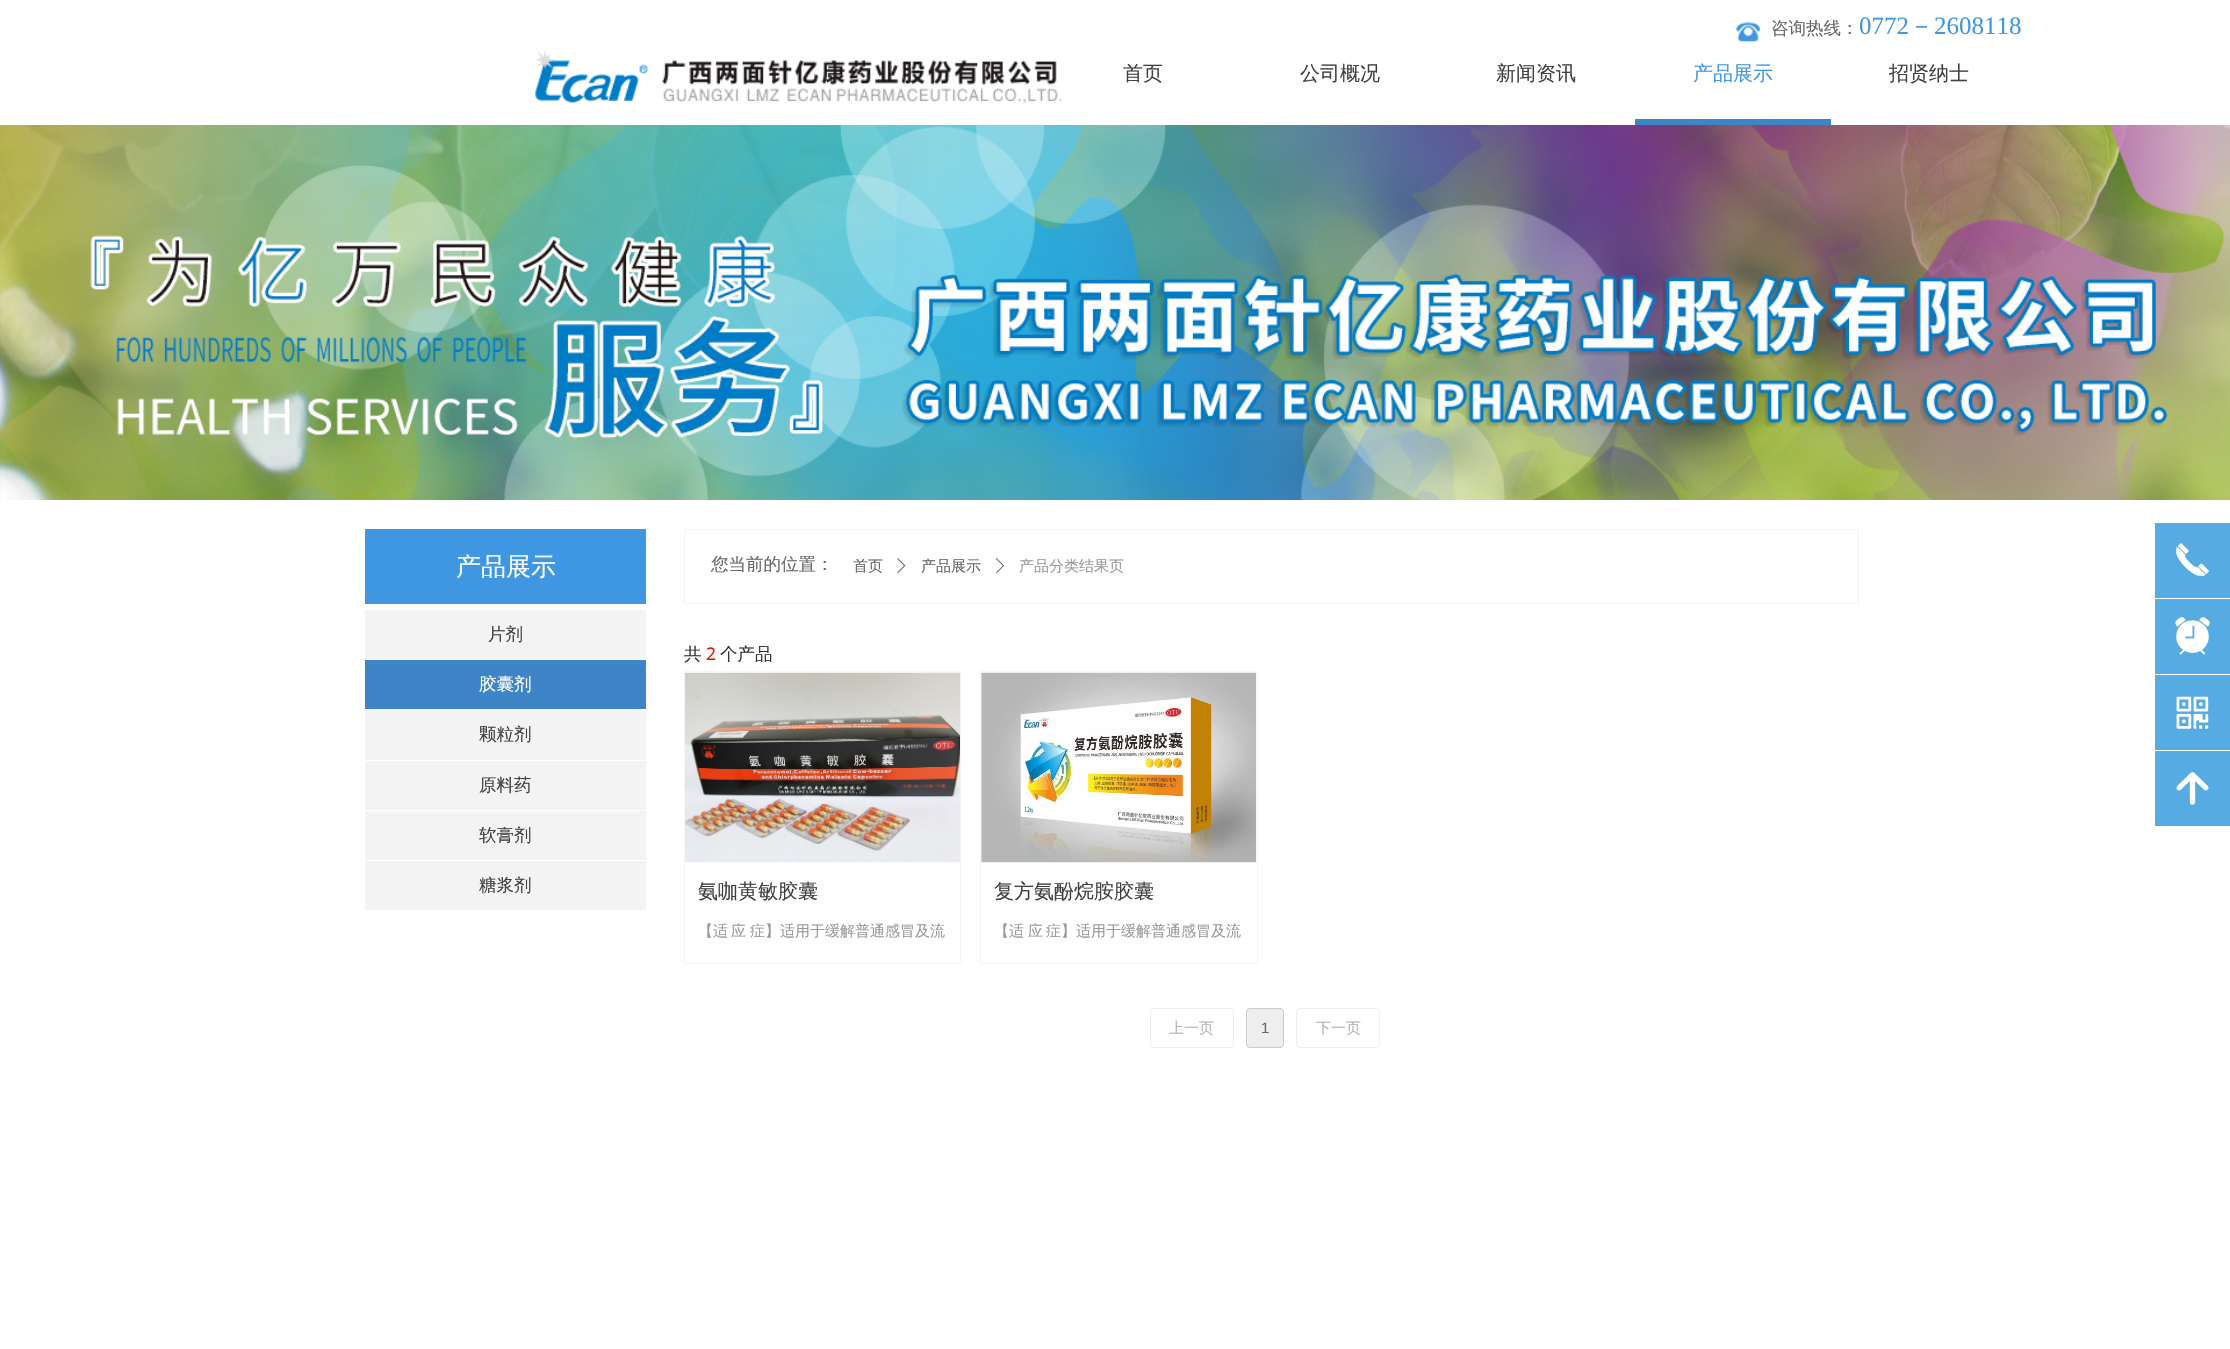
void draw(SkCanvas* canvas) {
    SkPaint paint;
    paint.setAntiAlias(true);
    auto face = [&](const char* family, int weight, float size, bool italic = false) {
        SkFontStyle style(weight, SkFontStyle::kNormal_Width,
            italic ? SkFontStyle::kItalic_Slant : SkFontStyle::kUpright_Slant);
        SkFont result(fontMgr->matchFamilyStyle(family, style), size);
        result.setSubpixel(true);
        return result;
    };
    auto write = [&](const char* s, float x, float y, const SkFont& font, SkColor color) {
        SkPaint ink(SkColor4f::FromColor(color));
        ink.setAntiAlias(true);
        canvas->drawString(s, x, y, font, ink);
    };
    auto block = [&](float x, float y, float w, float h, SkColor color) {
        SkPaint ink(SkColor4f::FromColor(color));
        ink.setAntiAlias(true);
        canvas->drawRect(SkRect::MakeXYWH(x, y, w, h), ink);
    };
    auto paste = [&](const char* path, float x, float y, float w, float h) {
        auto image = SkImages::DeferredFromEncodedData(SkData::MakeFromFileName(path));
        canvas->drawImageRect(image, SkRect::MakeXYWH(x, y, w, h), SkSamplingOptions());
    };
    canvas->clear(SK_ColorWHITE);
    paste("pic1.png", 1736, 22, 25, 20);
    auto kFont1 = face("WenQuanYi Zen Hei", 500, 17.5f);
    write("咨询热线：", 1771, 34, kFont1, SkColorSetRGB(102, 102, 102));
    auto kFont2 = face("Liberation Serif", 400, 25);
    write("0772", 1859, 34, kFont2, SkColorSetRGB(64, 151, 225));
    auto kFont3 = face("WenQuanYi Zen Hei", 500, 25);
    write("－", 1909, 34, kFont3, SkColorSetRGB(64, 151, 225));
    write("2608118", 1934, 34, kFont2, SkColorSetRGB(64, 151, 225));
    paste("pic2.png", 535, 50, 527, 54);
    auto kFont4 = face("WenQuanYi Zen Hei", 500, 20);
    write("首页", 1123, 80, kFont4, SkColorSetRGB(64, 64, 64));
    write("公司概况", 1300, 80, kFont4, SkColorSetRGB(64, 64, 64));
    write("新闻资讯", 1496, 80, kFont4, SkColorSetRGB(64, 64, 64));
    write("产品展示", 1693, 80, kFont4, SkColorSetRGB(64, 151, 225));
    block(1635, 119, 196, 6, SkColorSetRGB(61, 133, 198));
    write("招贤纳士", 1889, 80, kFont4, SkColorSetRGB(64, 64, 64));
    paste("pic3.png", 0, 125, 2230, 375);
    block(365, 529, 281, 75, SkColorSetRGB(64, 151, 225));
    write("产品展示", 456, 575, kFont3, SK_ColorWHITE);
    block(365, 610, 281, 49, SkColorSetRGB(243, 243, 243));
    write("片剂", 488, 640, kFont1, SkColorSetRGB(64, 64, 64));
    block(365, 660, 281, 49, SkColorSetRGB(61, 133, 198));
    write("胶囊剂", 479, 690, kFont1, SK_ColorWHITE);
    block(365, 710, 281, 50, SkColorSetRGB(243, 243, 243));
    write("颗粒剂", 479, 740, kFont1, SkColorSetRGB(64, 64, 64));
    block(365, 761, 281, 49, SkColorSetRGB(243, 243, 243));
    write("原料药", 479, 791, kFont1, SkColorSetRGB(64, 64, 64));
    block(365, 811, 281, 49, SkColorSetRGB(243, 243, 243));
    write("软膏剂", 479, 841, kFont1, SkColorSetRGB(64, 64, 64));
    block(365, 861, 281, 49, SkColorSetRGB(243, 243, 243));
    write("糖浆剂", 479, 891, kFont1, SkColorSetRGB(64, 64, 64));
    paint.setStyle(SkPaint::kStroke_Style);
    paint.setStrokeWidth(1);
    paint.setColor(SkColorSetRGB(243, 243, 243));
    canvas->drawRect(SkRect::MakeXYWH(684.5f, 529.5f, 1174, 74), paint);
    canvas->save();
    canvas->clipRect(SkRect::MakeXYWH(711, 556, 348, 40));
    write("您当前的位置：", 711, 570, kFont1, SkColorSetRGB(102, 102, 102));
    canvas->restore();
    auto kFont5 = face("WenQuanYi Zen Hei", 500, 15);
    write("首页", 853, 571, kFont5, SkColorSetRGB(102, 102, 102));
    paste("pic4.png", 897, 558, 9, 16);
    write("产品展示", 921, 571, kFont5, SkColorSetRGB(102, 102, 102));
    paste("pic5.png", 996, 558, 8, 16);
    write("产品分类结果页", 1019, 571, kFont5, SkColorSetRGB(153, 153, 153));
    write("共", 684, 660, kFont1, SkColorSetRGB(51, 51, 51));
    auto kFont6 = face("Noto Sans", 400, 17.5f);
    write("2", 706, 660, kFont6, SkColorSetRGB(216, 27, 0));
    write("个产品", 720, 660, kFont1, SkColorSetRGB(51, 51, 51));
    paint.setColor(SkColorSetRGB(245, 245, 245));
    canvas->drawRect(SkRect::MakeXYWH(684.5f, 671.5f, 276, 292), paint);
    paste("pic6.png", 685, 672, 275, 191);
    write("氨咖黄敏胶囊", 698, 898, kFont4, SkColorSetRGB(64, 64, 64));
    write("【适", 698, 936, kFont5, SkColorSetRGB(153, 153, 153));
    write("应", 731, 936, kFont5, SkColorSetRGB(153, 153, 153));
    write("症】适用于缓解普通感冒及流", 750, 936, kFont5, SkColorSetRGB(153, 153, 153));
    canvas->drawRect(SkRect::MakeXYWH(980.5f, 671.5f, 277, 292), paint);
    paste("pic7.png", 981, 672, 276, 191);
    write("复方氨酚烷胺胶囊", 994, 898, kFont4, SkColorSetRGB(64, 64, 64));
    write("【适", 994, 936, kFont5, SkColorSetRGB(153, 153, 153));
    write("应", 1028, 936, kFont5, SkColorSetRGB(153, 153, 153));
    write("症】适用于缓解普通感冒及流", 1046, 936, kFont5, SkColorSetRGB(153, 153, 153));
    paint.setColor(SkColorSetRGB(238, 238, 238));
    canvas->drawRoundRect(SkRect::MakeXYWH(1150.5f, 1008.5f, 83, 39), 3.5f, 3.5f, paint);
    write("上一页", 1169, 1033, kFont5, SkColorSetRGB(179, 179, 179));
    paint.setStyle(SkPaint::kFill_Style);
    canvas->drawRoundRect(SkRect::MakeXYWH(1246.5f, 1008.5f, 37, 39), 3.5f, 3.5f, paint);
    paint.setStyle(SkPaint::kStroke_Style);
    paint.setColor(SkColorSetRGB(204, 204, 204));
    canvas->drawRoundRect(SkRect::MakeXYWH(1246.5f, 1008.5f, 37, 39), 3.5f, 3.5f, paint);
    auto kFont7 = face("Liberation Sans", 400, 15);
    write("1", 1261, 1033, kFont7, SkColorSetRGB(102, 102, 102));
    paint.setColor(SkColorSetRGB(238, 238, 238));
    canvas->drawRoundRect(SkRect::MakeXYWH(1296.5f, 1008.5f, 83, 39), 3.5f, 3.5f, paint);
    write("下一页", 1316, 1033, kFont5, SkColorSetRGB(179, 179, 179));
    block(2155, 523, 75, 75, SkColorSetRGB(86, 171, 226));
    paste("pic8.png", 2176, 543, 33, 33);
    block(2155, 599, 75, 75, SkColorSetRGB(86, 171, 226));
    paste("pic9.png", 2175, 617, 35, 38);
    block(2155, 675, 75, 75, SkColorSetRGB(86, 171, 226));
    paste("pic10.png", 2176, 696, 33, 33);
    block(2155, 751, 75, 75, SkColorSetRGB(86, 171, 226));
    paste("pic11.png", 2176, 772, 33, 33);
}
